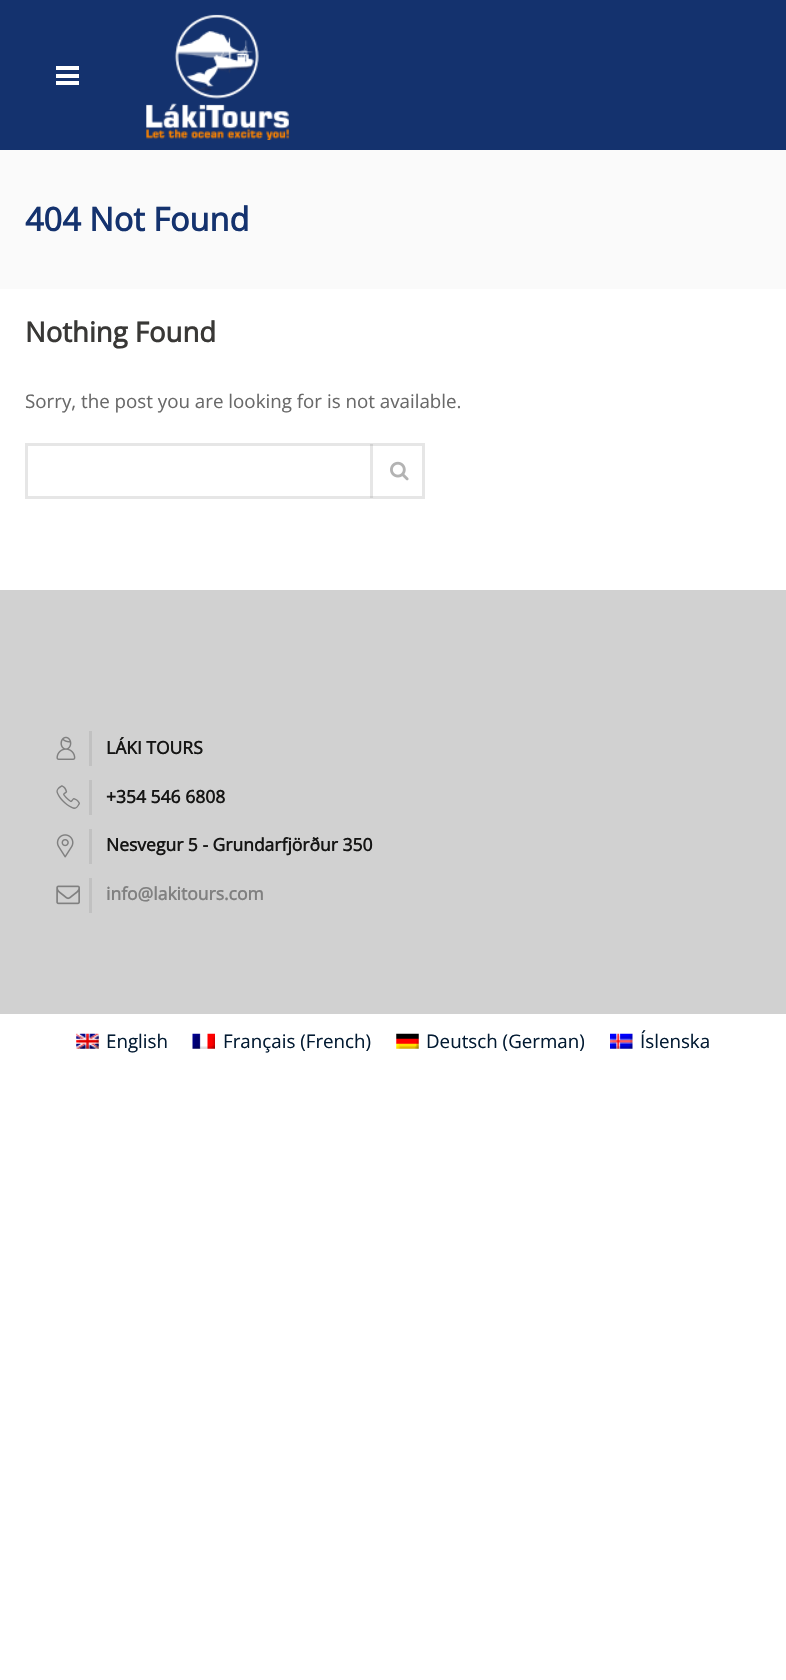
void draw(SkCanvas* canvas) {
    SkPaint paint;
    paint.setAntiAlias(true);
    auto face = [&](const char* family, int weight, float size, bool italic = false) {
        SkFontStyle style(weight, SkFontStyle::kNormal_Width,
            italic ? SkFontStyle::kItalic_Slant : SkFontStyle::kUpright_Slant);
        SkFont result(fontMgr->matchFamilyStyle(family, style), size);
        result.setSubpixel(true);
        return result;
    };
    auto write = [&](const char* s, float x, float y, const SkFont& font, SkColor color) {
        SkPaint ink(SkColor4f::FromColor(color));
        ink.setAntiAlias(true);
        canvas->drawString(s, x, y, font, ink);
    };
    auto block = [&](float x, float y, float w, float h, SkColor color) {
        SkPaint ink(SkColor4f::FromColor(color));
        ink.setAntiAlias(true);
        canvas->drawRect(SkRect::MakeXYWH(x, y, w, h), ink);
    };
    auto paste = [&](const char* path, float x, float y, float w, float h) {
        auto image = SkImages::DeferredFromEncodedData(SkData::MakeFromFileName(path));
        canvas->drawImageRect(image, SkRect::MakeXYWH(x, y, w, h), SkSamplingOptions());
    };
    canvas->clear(SK_ColorWHITE);
    block(0, 0, 786, 150, SkColorSetRGB(20, 50, 110));
    block(56, 66, 23, 4, SK_ColorWHITE);
    block(56, 74, 23, 4, SK_ColorWHITE);
    block(56, 81, 23, 4, SK_ColorWHITE);
    paste("pic1.png", 146, 14, 143, 126);
    block(0, 150, 786, 139, SkColorSetRGB(250, 250, 250));
    auto kFont1 = face("Open Sans", 700, 32.5f);
    write("404 Not Found", 25, 231, kFont1, SkColorSetRGB(20, 50, 110));
    auto kFont2 = face("Open Sans", 700, 27.5f);
    write("Nothing Found", 25, 342, kFont2, SkColorSetRGB(57, 56, 54));
    auto kFont3 = face("Open Sans", 400, 18.75f);
    write("Sorry, the post you are looking for is not available.", 25, 408, kFont3, SkColorSetRGB(105, 105, 105));
    paint.setStyle(SkPaint::kStroke_Style);
    paint.setStrokeWidth(3);
    paint.setColor(SkColorSetRGB(230, 230, 230));
    canvas->drawRect(SkRect::MakeXYWH(26.5f, 444.5f, 397, 53), paint);
    block(370, 444, 3, 54, SkColorSetARGB(51, 128, 128, 128));
    paste("pic2.png", 390, 461, 19, 20);
    block(0, 590, 786, 424, SkColorSetRGB(209, 209, 209));
    block(89, 731, 3, 35, SkColorSetRGB(193, 193, 193));
    paste("pic3.png", 56, 736, 20, 24);
    auto kFont4 = face("Open Sans", 700, 17.5f);
    write("LÁKI TOURS", 106, 754, kFont4, SkColorSetRGB(21, 21, 20));
    block(89, 780, 3, 35, SkColorSetRGB(193, 193, 193));
    paste("pic4.png", 56, 785, 24, 24);
    write("+354 546 6808", 106, 803, kFont4, SkColorSetRGB(21, 21, 20));
    block(89, 829, 3, 35, SkColorSetRGB(193, 193, 193));
    paste("pic5.png", 56, 834, 18, 24);
    write("Nesvegur 5 - Grundarfjörður 350", 106, 851, kFont4, SkColorSetRGB(21, 21, 20));
    block(89, 878, 3, 35, SkColorSetRGB(193, 193, 193));
    paste("pic6.png", 56, 885, 24, 20);
    write("info@lakitours.com", 106, 900, kFont4, SkColorSetRGB(128, 128, 128));
    paste("pic7.png", 76, 1033, 23, 16);
    write("English", 106, 1048, kFont3, SkColorSetRGB(2, 26, 50));
    paste("pic8.png", 192, 1033, 23, 16);
    write("Français (French)", 223, 1048, kFont3, SkColorSetRGB(2, 26, 50));
    paste("pic9.png", 396, 1033, 23, 16);
    write("Deutsch (German)", 426, 1048, kFont3, SkColorSetRGB(2, 26, 50));
    paste("pic10.png", 610, 1033, 23, 16);
    write("Íslenska", 640, 1048, kFont3, SkColorSetRGB(2, 26, 50));
}
